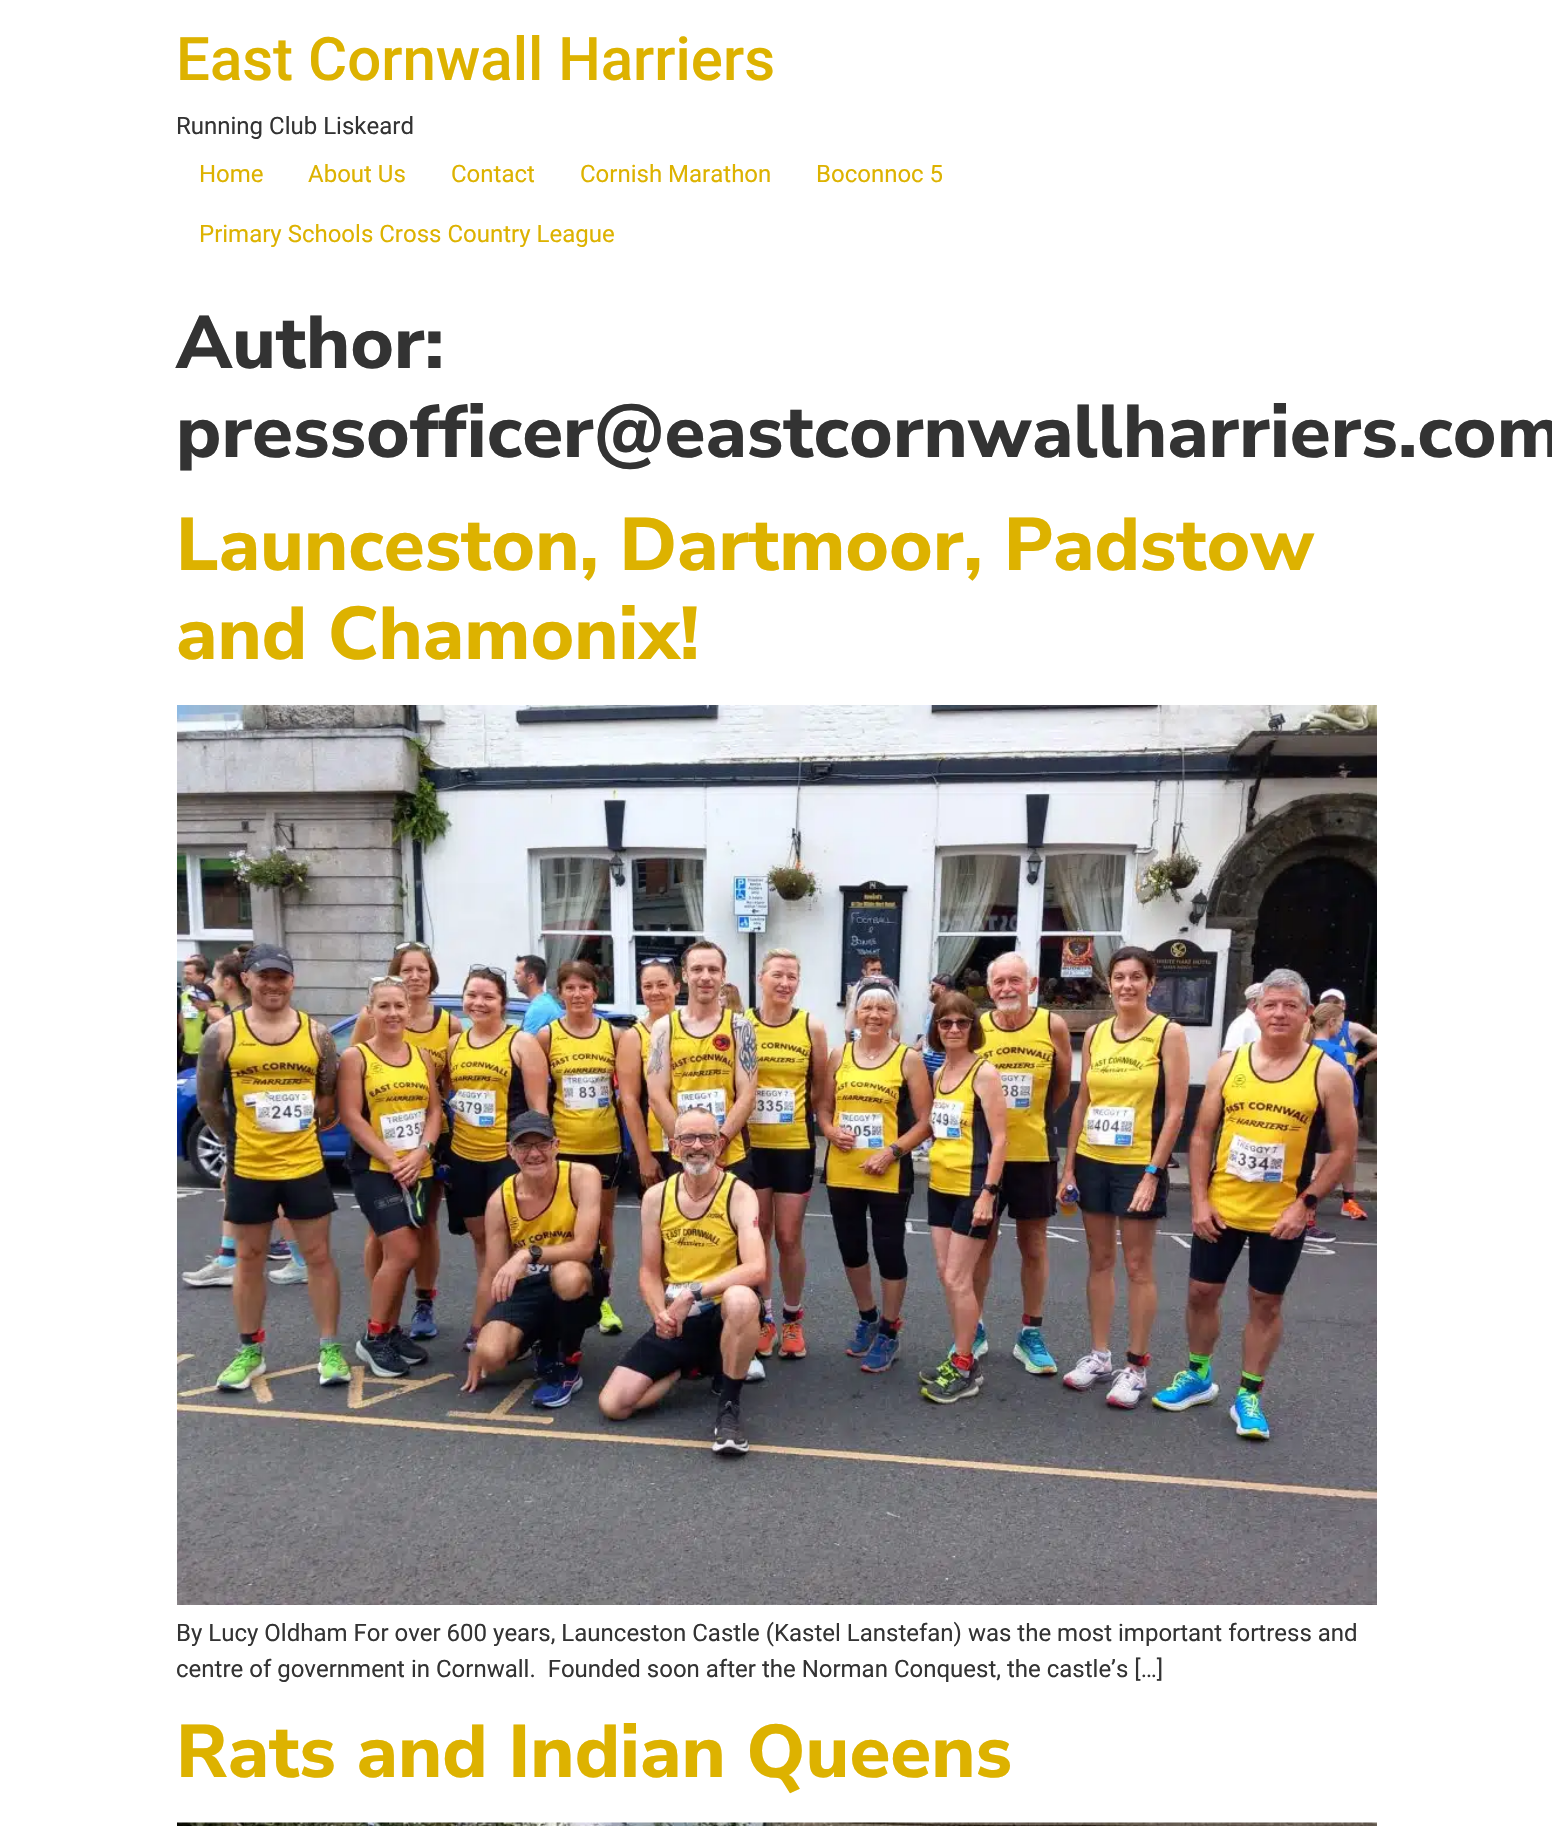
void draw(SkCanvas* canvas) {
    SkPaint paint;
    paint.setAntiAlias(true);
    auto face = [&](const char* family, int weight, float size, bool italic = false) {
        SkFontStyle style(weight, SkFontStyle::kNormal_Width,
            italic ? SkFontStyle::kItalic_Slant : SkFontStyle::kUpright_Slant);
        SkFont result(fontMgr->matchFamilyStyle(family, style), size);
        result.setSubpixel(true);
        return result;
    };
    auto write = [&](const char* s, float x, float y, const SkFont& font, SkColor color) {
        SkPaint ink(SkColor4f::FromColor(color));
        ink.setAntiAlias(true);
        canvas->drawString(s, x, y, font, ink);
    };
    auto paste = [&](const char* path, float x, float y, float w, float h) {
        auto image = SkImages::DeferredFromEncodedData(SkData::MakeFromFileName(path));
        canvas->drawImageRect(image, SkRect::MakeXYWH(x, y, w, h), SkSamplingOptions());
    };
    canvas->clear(SK_ColorWHITE);
    auto kFont1 = face("Roboto", 500, 60);
    write("East Cornwall Harriers", 176, 80, kFont1, SkColorSetRGB(221, 178, 0));
    auto kFont2 = face("Roboto", 400, 24);
    write("Running Club Liskeard", 176, 134, kFont2, SkColorSetRGB(51, 51, 51));
    write("Home", 199, 182, kFont2, SkColorSetRGB(221, 178, 0));
    write("About Us", 308, 182, kFont2, SkColorSetRGB(221, 178, 0));
    write("Contact", 451, 182, kFont2, SkColorSetRGB(221, 178, 0));
    write("Cornish Marathon", 580, 182, kFont2, SkColorSetRGB(221, 178, 0));
    write("Boconnoc 5", 816, 182, kFont2, SkColorSetRGB(221, 178, 0));
    write("Primary Schools Cross Country League", 199, 242, kFont2, SkColorSetRGB(221, 178, 0));
    auto kFont3 = face("Nunito Sans", 800, 74.4f);
    write("Author:", 176, 368, kFont3, SkColorSetRGB(51, 51, 51));
    write("pressofficer@eastcornwallharriers.com", 176, 457, kFont3, SkColorSetRGB(51, 51, 51));
    write("Launceston, Dartmoor, Padstow", 176, 570, kFont3, SkColorSetRGB(221, 178, 0));
    write("and Chamonix!", 176, 659, kFont3, SkColorSetRGB(221, 178, 0));
    paste("pic1.png", 177, 705, 1200, 900);
    write("By Lucy Oldham For over 600 years, Launceston Castle (Kastel Lanstefan) was the most important fortress and", 176, 1641, kFont2, SkColorSetRGB(51, 51, 51));
    write("centre of government in Cornwall.  Founded soon after the Norman Conquest, the castle’s […]", 176, 1677, kFont2, SkColorSetRGB(51, 51, 51));
    write("Rats and Indian Queens", 176, 1777, kFont3, SkColorSetRGB(221, 178, 0));
    paste("pic2.png", 177, 1822, 1200, 4);
}
